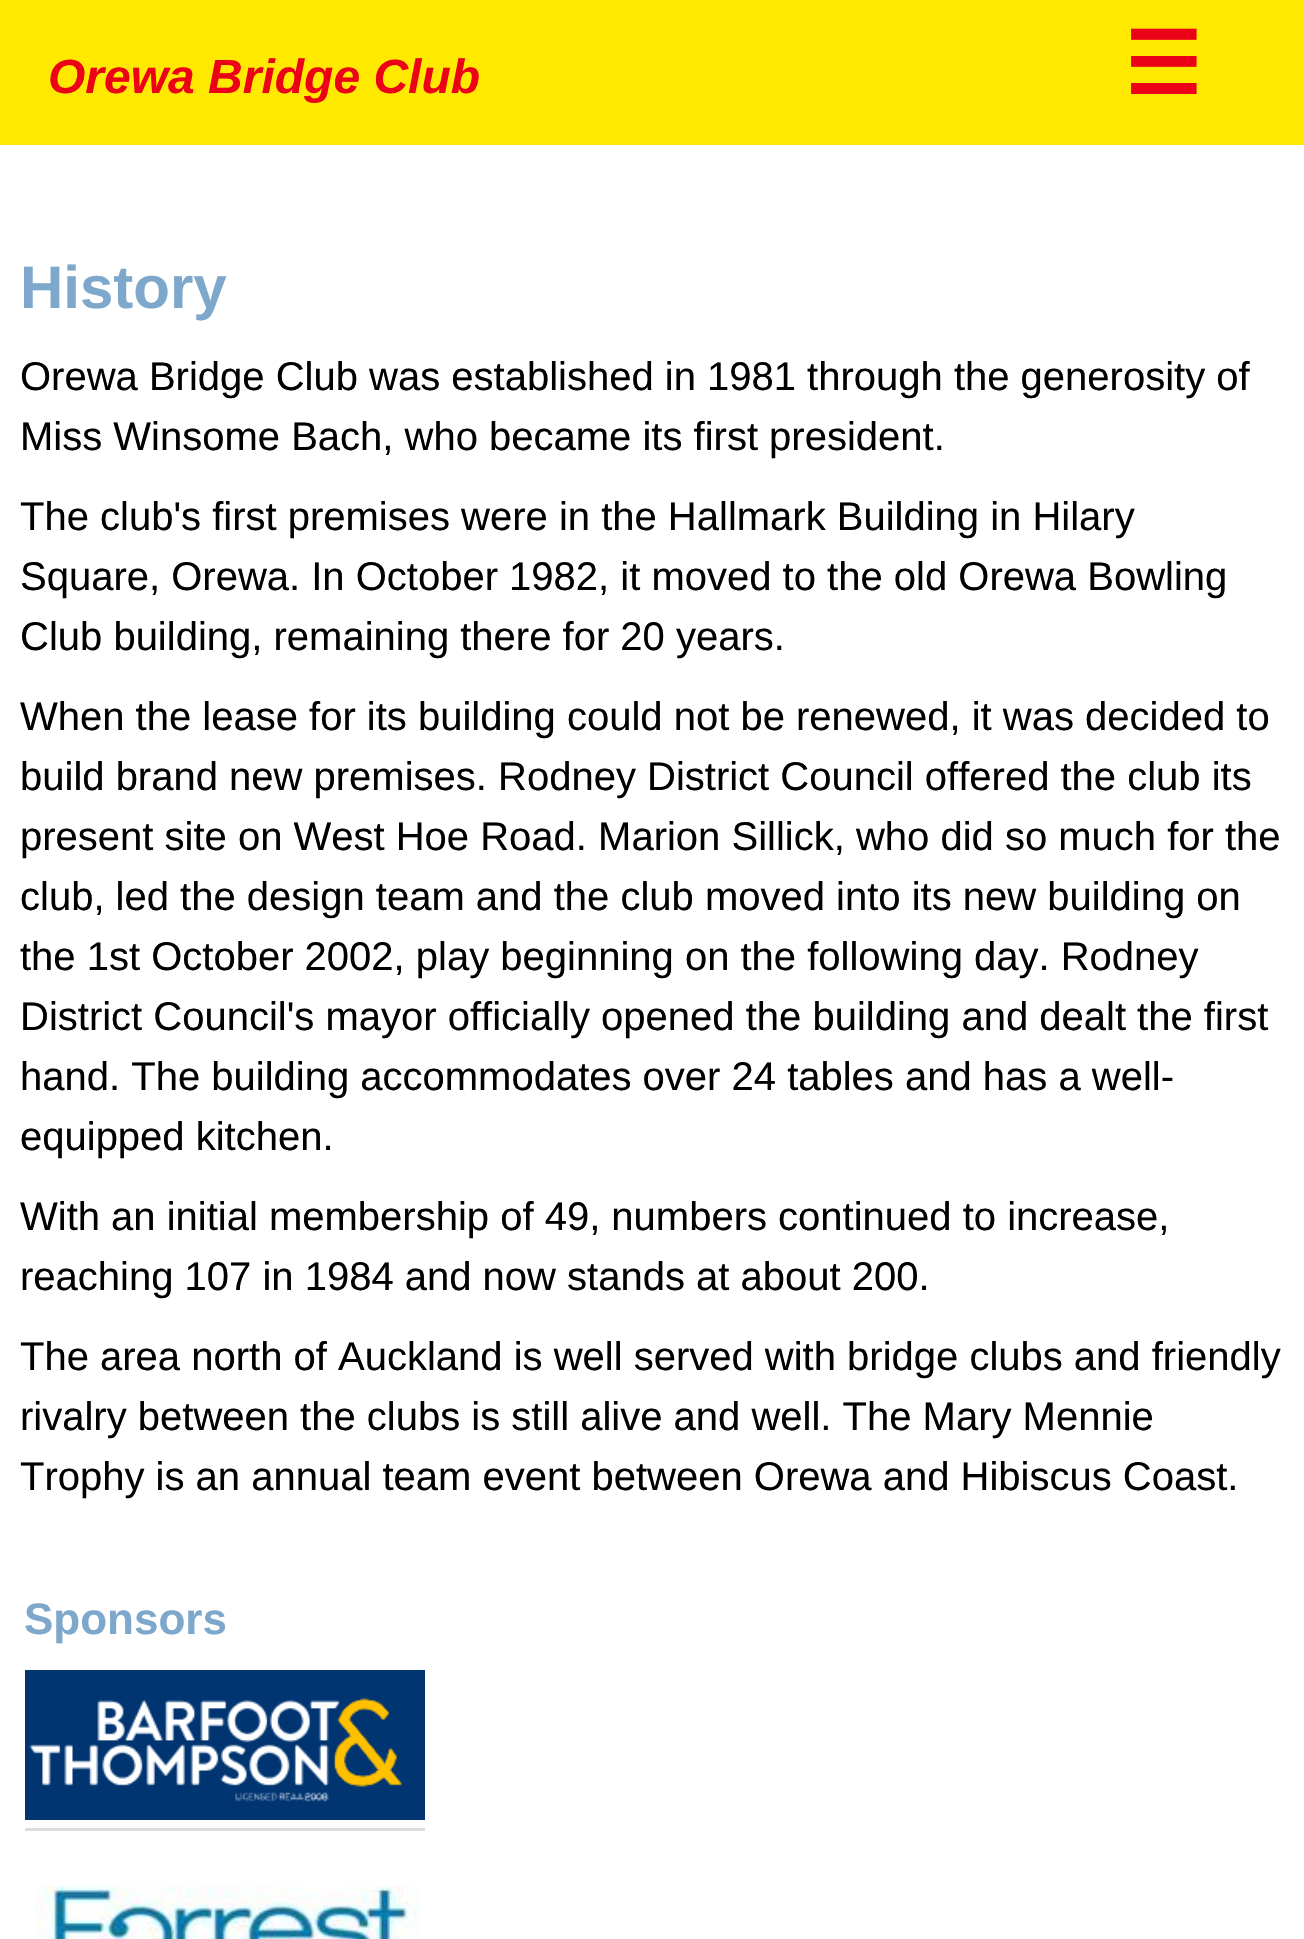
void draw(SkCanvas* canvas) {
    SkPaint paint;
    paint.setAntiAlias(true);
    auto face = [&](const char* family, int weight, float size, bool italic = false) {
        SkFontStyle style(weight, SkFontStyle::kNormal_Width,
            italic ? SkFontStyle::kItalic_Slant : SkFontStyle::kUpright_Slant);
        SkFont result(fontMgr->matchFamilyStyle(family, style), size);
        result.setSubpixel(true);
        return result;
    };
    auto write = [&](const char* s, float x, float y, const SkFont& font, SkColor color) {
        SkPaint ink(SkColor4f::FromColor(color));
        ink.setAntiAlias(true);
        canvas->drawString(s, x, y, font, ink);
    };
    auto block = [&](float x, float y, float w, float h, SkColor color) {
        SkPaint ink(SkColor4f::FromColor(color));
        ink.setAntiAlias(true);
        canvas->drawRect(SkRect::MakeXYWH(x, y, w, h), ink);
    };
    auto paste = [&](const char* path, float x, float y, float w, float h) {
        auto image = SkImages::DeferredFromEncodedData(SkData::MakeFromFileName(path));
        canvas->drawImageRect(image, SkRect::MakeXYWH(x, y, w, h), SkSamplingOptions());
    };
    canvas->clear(SK_ColorWHITE);
    block(0, 0, 1304, 145, SkColorSetRGB(255, 233, 0));
    auto kFont1 = face("Liberation Sans", 700, 48, true);
    write("Orewa Bridge Club", 48, 93, kFont1, SkColorSetRGB(235, 2, 22));
    auto kFont2 = face("DejaVu Sans", 700, 86);
    write("☰", 1124, 94, kFont2, SkColorSetRGB(235, 2, 22));
    auto kFont3 = face("Liberation Sans", 700, 60);
    write("History", 20, 308, kFont3, SkColorSetRGB(125, 168, 203));
    auto kFont4 = face("Liberation Sans", 400, 40);
    write("Orewa Bridge Club was established in 1981 through the generosity of", 20, 390, kFont4, SK_ColorBLACK);
    write("Miss Winsome Bach, who became its first president.", 20, 450, kFont4, SK_ColorBLACK);
    write("The club's first premises were in the Hallmark Building in Hilary", 20, 530, kFont4, SK_ColorBLACK);
    write("Square, Orewa. In October 1982, it moved to the old Orewa Bowling", 20, 590, kFont4, SK_ColorBLACK);
    write("Club building, remaining there for 20 years.", 20, 650, kFont4, SK_ColorBLACK);
    write("When the lease for its building could not be renewed, it was decided to", 20, 730, kFont4, SK_ColorBLACK);
    write("build brand new premises. Rodney District Council offered the club its", 20, 790, kFont4, SK_ColorBLACK);
    write("present site on West Hoe Road. Marion Sillick, who did so much for the", 20, 850, kFont4, SK_ColorBLACK);
    write("club, led the design team and the club moved into its new building on", 20, 910, kFont4, SK_ColorBLACK);
    write("the 1st October 2002, play beginning on the following day. Rodney", 20, 970, kFont4, SK_ColorBLACK);
    write("District Council's mayor officially opened the building and dealt the first", 20, 1030, kFont4, SK_ColorBLACK);
    write("hand. The building accommodates over 24 tables and has a well-", 20, 1090, kFont4, SK_ColorBLACK);
    write("equipped kitchen.", 20, 1150, kFont4, SK_ColorBLACK);
    write("With an initial membership of 49, numbers continued to increase,", 20, 1230, kFont4, SK_ColorBLACK);
    write("reaching 107 in 1984 and now stands at about 200.", 20, 1290, kFont4, SK_ColorBLACK);
    write("The area north of Auckland is well served with bridge clubs and friendly", 20, 1370, kFont4, SK_ColorBLACK);
    write("rivalry between the clubs is still alive and well. The Mary Mennie", 20, 1430, kFont4, SK_ColorBLACK);
    write("Trophy is an annual team event between Orewa and Hibiscus Coast.", 20, 1490, kFont4, SK_ColorBLACK);
    auto kFont5 = face("Liberation Sans", 700, 44);
    write("Sponsors", 24, 1634, kFont5, SkColorSetRGB(125, 168, 203));
    paste("pic1.png", 25, 1670, 400, 150);
    block(25, 1828, 400, 3, SkColorSetRGB(219, 219, 219));
    paste("pic2.png", 35, 1885, 385, 54);
}
